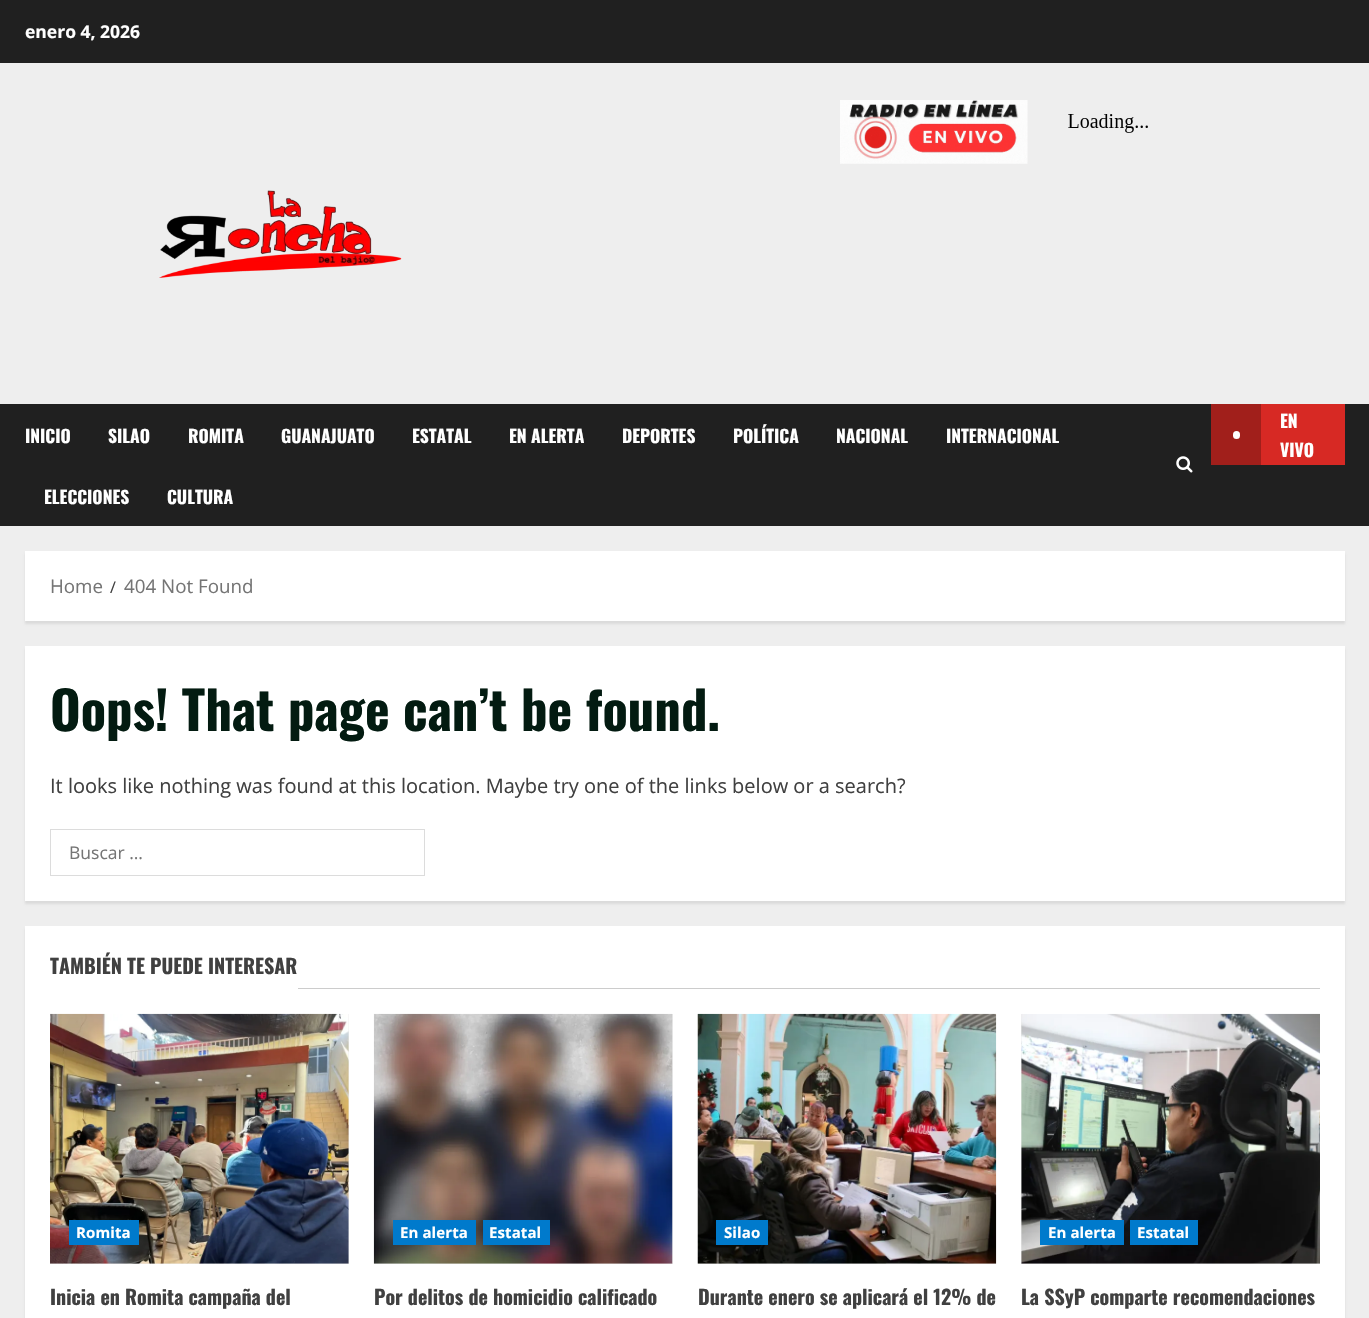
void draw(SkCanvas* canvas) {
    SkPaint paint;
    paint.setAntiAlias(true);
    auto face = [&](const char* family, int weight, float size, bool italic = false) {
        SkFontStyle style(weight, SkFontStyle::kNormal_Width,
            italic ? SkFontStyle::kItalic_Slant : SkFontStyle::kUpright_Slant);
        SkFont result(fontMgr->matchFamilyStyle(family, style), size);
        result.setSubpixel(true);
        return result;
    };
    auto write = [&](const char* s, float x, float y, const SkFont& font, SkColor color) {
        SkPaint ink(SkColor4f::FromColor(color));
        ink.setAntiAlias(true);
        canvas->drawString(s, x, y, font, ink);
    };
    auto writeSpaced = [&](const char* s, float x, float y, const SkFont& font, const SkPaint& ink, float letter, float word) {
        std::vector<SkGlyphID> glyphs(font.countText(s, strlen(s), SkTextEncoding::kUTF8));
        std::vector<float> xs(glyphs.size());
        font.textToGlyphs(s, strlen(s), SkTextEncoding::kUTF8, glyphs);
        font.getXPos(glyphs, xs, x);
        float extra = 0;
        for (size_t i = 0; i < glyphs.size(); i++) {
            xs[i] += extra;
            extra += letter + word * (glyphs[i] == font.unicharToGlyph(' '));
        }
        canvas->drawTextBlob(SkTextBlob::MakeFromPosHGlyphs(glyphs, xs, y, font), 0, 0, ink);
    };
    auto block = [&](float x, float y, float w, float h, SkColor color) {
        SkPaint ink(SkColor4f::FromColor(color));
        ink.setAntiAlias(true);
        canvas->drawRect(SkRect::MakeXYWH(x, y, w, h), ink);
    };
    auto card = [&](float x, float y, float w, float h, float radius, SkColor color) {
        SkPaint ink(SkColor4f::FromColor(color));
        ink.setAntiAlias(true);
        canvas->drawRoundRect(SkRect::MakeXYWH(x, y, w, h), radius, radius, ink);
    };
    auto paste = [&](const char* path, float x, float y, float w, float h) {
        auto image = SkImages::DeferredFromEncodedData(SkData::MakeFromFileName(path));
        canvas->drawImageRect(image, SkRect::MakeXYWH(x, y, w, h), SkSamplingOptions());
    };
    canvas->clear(SkColorSetRGB(238, 238, 238));
    block(0, 0, 1369, 63, SkColorSetRGB(32, 32, 32));
    auto kFont1 = face("Open Sans", 700, 17.5f);
    write("enero 4, 2026", 25, 38, kFont1, SK_ColorWHITE);
    paste("pic1.png", 840, 100, 188, 64);
    paste("pic2.png", 1068, 114, 80, 19);
    paste("pic3.png", 159, 190, 243, 88);
    block(0, 404, 1369, 122, SkColorSetRGB(32, 32, 32));
    auto kFont2 = face("Oswald", 700, 17.5f);
    write("INICIO", 25, 443, kFont2, SK_ColorWHITE);
    write("SILAO", 108, 443, kFont2, SK_ColorWHITE);
    write("ROMITA", 188, 443, kFont2, SK_ColorWHITE);
    write("GUANAJUATO", 281, 443, kFont2, SK_ColorWHITE);
    write("ESTATAL", 412, 443, kFont2, SK_ColorWHITE);
    write("EN ALERTA", 509, 443, kFont2, SK_ColorWHITE);
    write("DEPORTES", 622, 443, kFont2, SK_ColorWHITE);
    write("POLÍTICA", 733, 443, kFont2, SK_ColorWHITE);
    write("NACIONAL", 836, 443, kFont2, SK_ColorWHITE);
    write("INTERNACIONAL", 946, 443, kFont2, SK_ColorWHITE);
    write("ELECCIONES", 44, 504, kFont2, SK_ColorWHITE);
    write("CULTURA", 167, 504, kFont2, SK_ColorWHITE);
    block(1261, 404, 84, 61, SkColorSetRGB(215, 41, 36));
    block(1211, 404, 50, 61, SkColorSetRGB(161, 31, 27));
    card(1233, 431, 7, 8, 3.5f, SK_ColorWHITE);
    write("EN", 1280, 428, kFont2, SK_ColorWHITE);
    write("VIVO", 1280, 457, kFont2, SK_ColorWHITE);
    paste("pic4.png", 1176, 456, 17, 17);
    paint.setColor(SkColorSetARGB(20, 0, 0, 0));
    paint.setMaskFilter(SkMaskFilter::MakeBlur(kNormal_SkBlurStyle, 1));
    canvas->drawRect(SkRect::MakeXYWH(25, 554, 1320, 70), paint);
    paint.setMaskFilter(nullptr);
    block(25, 551, 1320, 70, SK_ColorWHITE);
    auto kFont3 = face("Open Sans", 400, 18.75f);
    write("Home", 50, 593, kFont3, SkColorSetRGB(117, 117, 117));
    auto kFont4 = face("Open Sans", 400, 16);
    write("/", 110, 593, kFont4, SkColorSetRGB(64, 64, 64));
    write("404 Not Found", 124, 593, kFont3, SkColorSetRGB(117, 117, 117));
    paint.setMaskFilter(SkMaskFilter::MakeBlur(kNormal_SkBlurStyle, 1));
    canvas->drawRect(SkRect::MakeXYWH(25, 649, 1320, 255), paint);
    paint.setMaskFilter(nullptr);
    block(25, 646, 1320, 255, SK_ColorWHITE);
    auto kFont5 = face("Oswald", 700, 52.5f);
    write("Oops! That page can’t be found.", 50, 731, kFont5, SkColorSetRGB(3, 27, 17));
    auto kFont6 = face("Open Sans", 400, 20);
    write("It looks like nothing was found at this location. Maybe try one of the links below or a search?", 50, 793, kFont6, SkColorSetRGB(64, 64, 64));
    paint.setStyle(SkPaint::kStroke_Style);
    paint.setStrokeWidth(1);
    paint.setColor(SkColorSetRGB(220, 220, 220));
    canvas->drawRect(SkRect::MakeXYWH(50.5f, 829.5f, 374, 46), paint);
    auto kFont7 = face("Open Sans", 400, 17.5f);
    write("Buscar …", 69, 859, kFont7, SkColorSetRGB(117, 117, 117));
    paint.setStyle(SkPaint::kFill_Style);
    paint.setColor(SkColorSetARGB(20, 0, 0, 0));
    paint.setMaskFilter(SkMaskFilter::MakeBlur(kNormal_SkBlurStyle, 1));
    canvas->drawRect(SkRect::MakeXYWH(25, 929, 1320, 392), paint);
    paint.setMaskFilter(nullptr);
    block(25, 926, 1320, 392, SK_ColorWHITE);
    block(298, 988, 1022, 1, SkColorSetRGB(204, 204, 204));
    auto kFont8 = face("Oswald", 700, 20);
    write("TAMBIÉN TE PUEDE INTERESAR", 50, 974, kFont8, SkColorSetRGB(64, 64, 64));
    block(50, 1014, 299, 250, SkColorSetRGB(236, 236, 236));
    paste("pic5.png", 50, 1013, 299, 251);
    block(69, 1220, 70, 25, SkColorSetRGB(0, 122, 204));
    auto kFont9 = face("Open Sans", 700, 15);
    paint.setColor(SK_ColorWHITE);
    writeSpaced("Romita", 76, 1238, kFont9, paint, 0.1f, 0);
    write("Inicia en Romita campaña del", 50, 1305, kFont8, SkColorSetRGB(64, 64, 64));
    block(374, 1014, 299, 250, SkColorSetRGB(236, 236, 236));
    paste("pic6.png", 373, 1013, 300, 251);
    block(393, 1220, 83, 25, SkColorSetRGB(0, 122, 204));
    writeSpaced("En alerta", 400, 1238, kFont9, paint, 0.1f, 0);
    block(483, 1220, 67, 25, SkColorSetRGB(0, 122, 204));
    writeSpaced("Estatal", 489, 1238, kFont9, paint, 0.1f, 0);
    write("Por delitos de homicidio calificado", 374, 1305, kFont8, SkColorSetRGB(64, 64, 64));
    block(698, 1263, 298, 1, SkColorSetRGB(236, 236, 236));
    paste("pic7.png", 697, 1013, 300, 251);
    block(716, 1220, 52, 25, SkColorSetRGB(0, 122, 204));
    writeSpaced("Silao", 724, 1238, kFont9, paint, 0.1f, 0);
    write("Durante enero se aplicará el 12% de", 698, 1305, kFont8, SkColorSetRGB(64, 64, 64));
    block(1021, 1014, 299, 250, SkColorSetRGB(236, 236, 236));
    paste("pic8.png", 1021, 1013, 299, 251);
    block(1040, 1220, 84, 25, SkColorSetRGB(0, 122, 204));
    writeSpaced("En alerta", 1048, 1238, kFont9, paint, 0.1f, 0);
    block(1130, 1220, 68, 25, SkColorSetRGB(0, 122, 204));
    writeSpaced("Estatal", 1137, 1238, kFont9, paint, 0.1f, 0);
    write("La SSyP comparte recomendaciones", 1021, 1305, kFont8, SkColorSetRGB(64, 64, 64));
}
